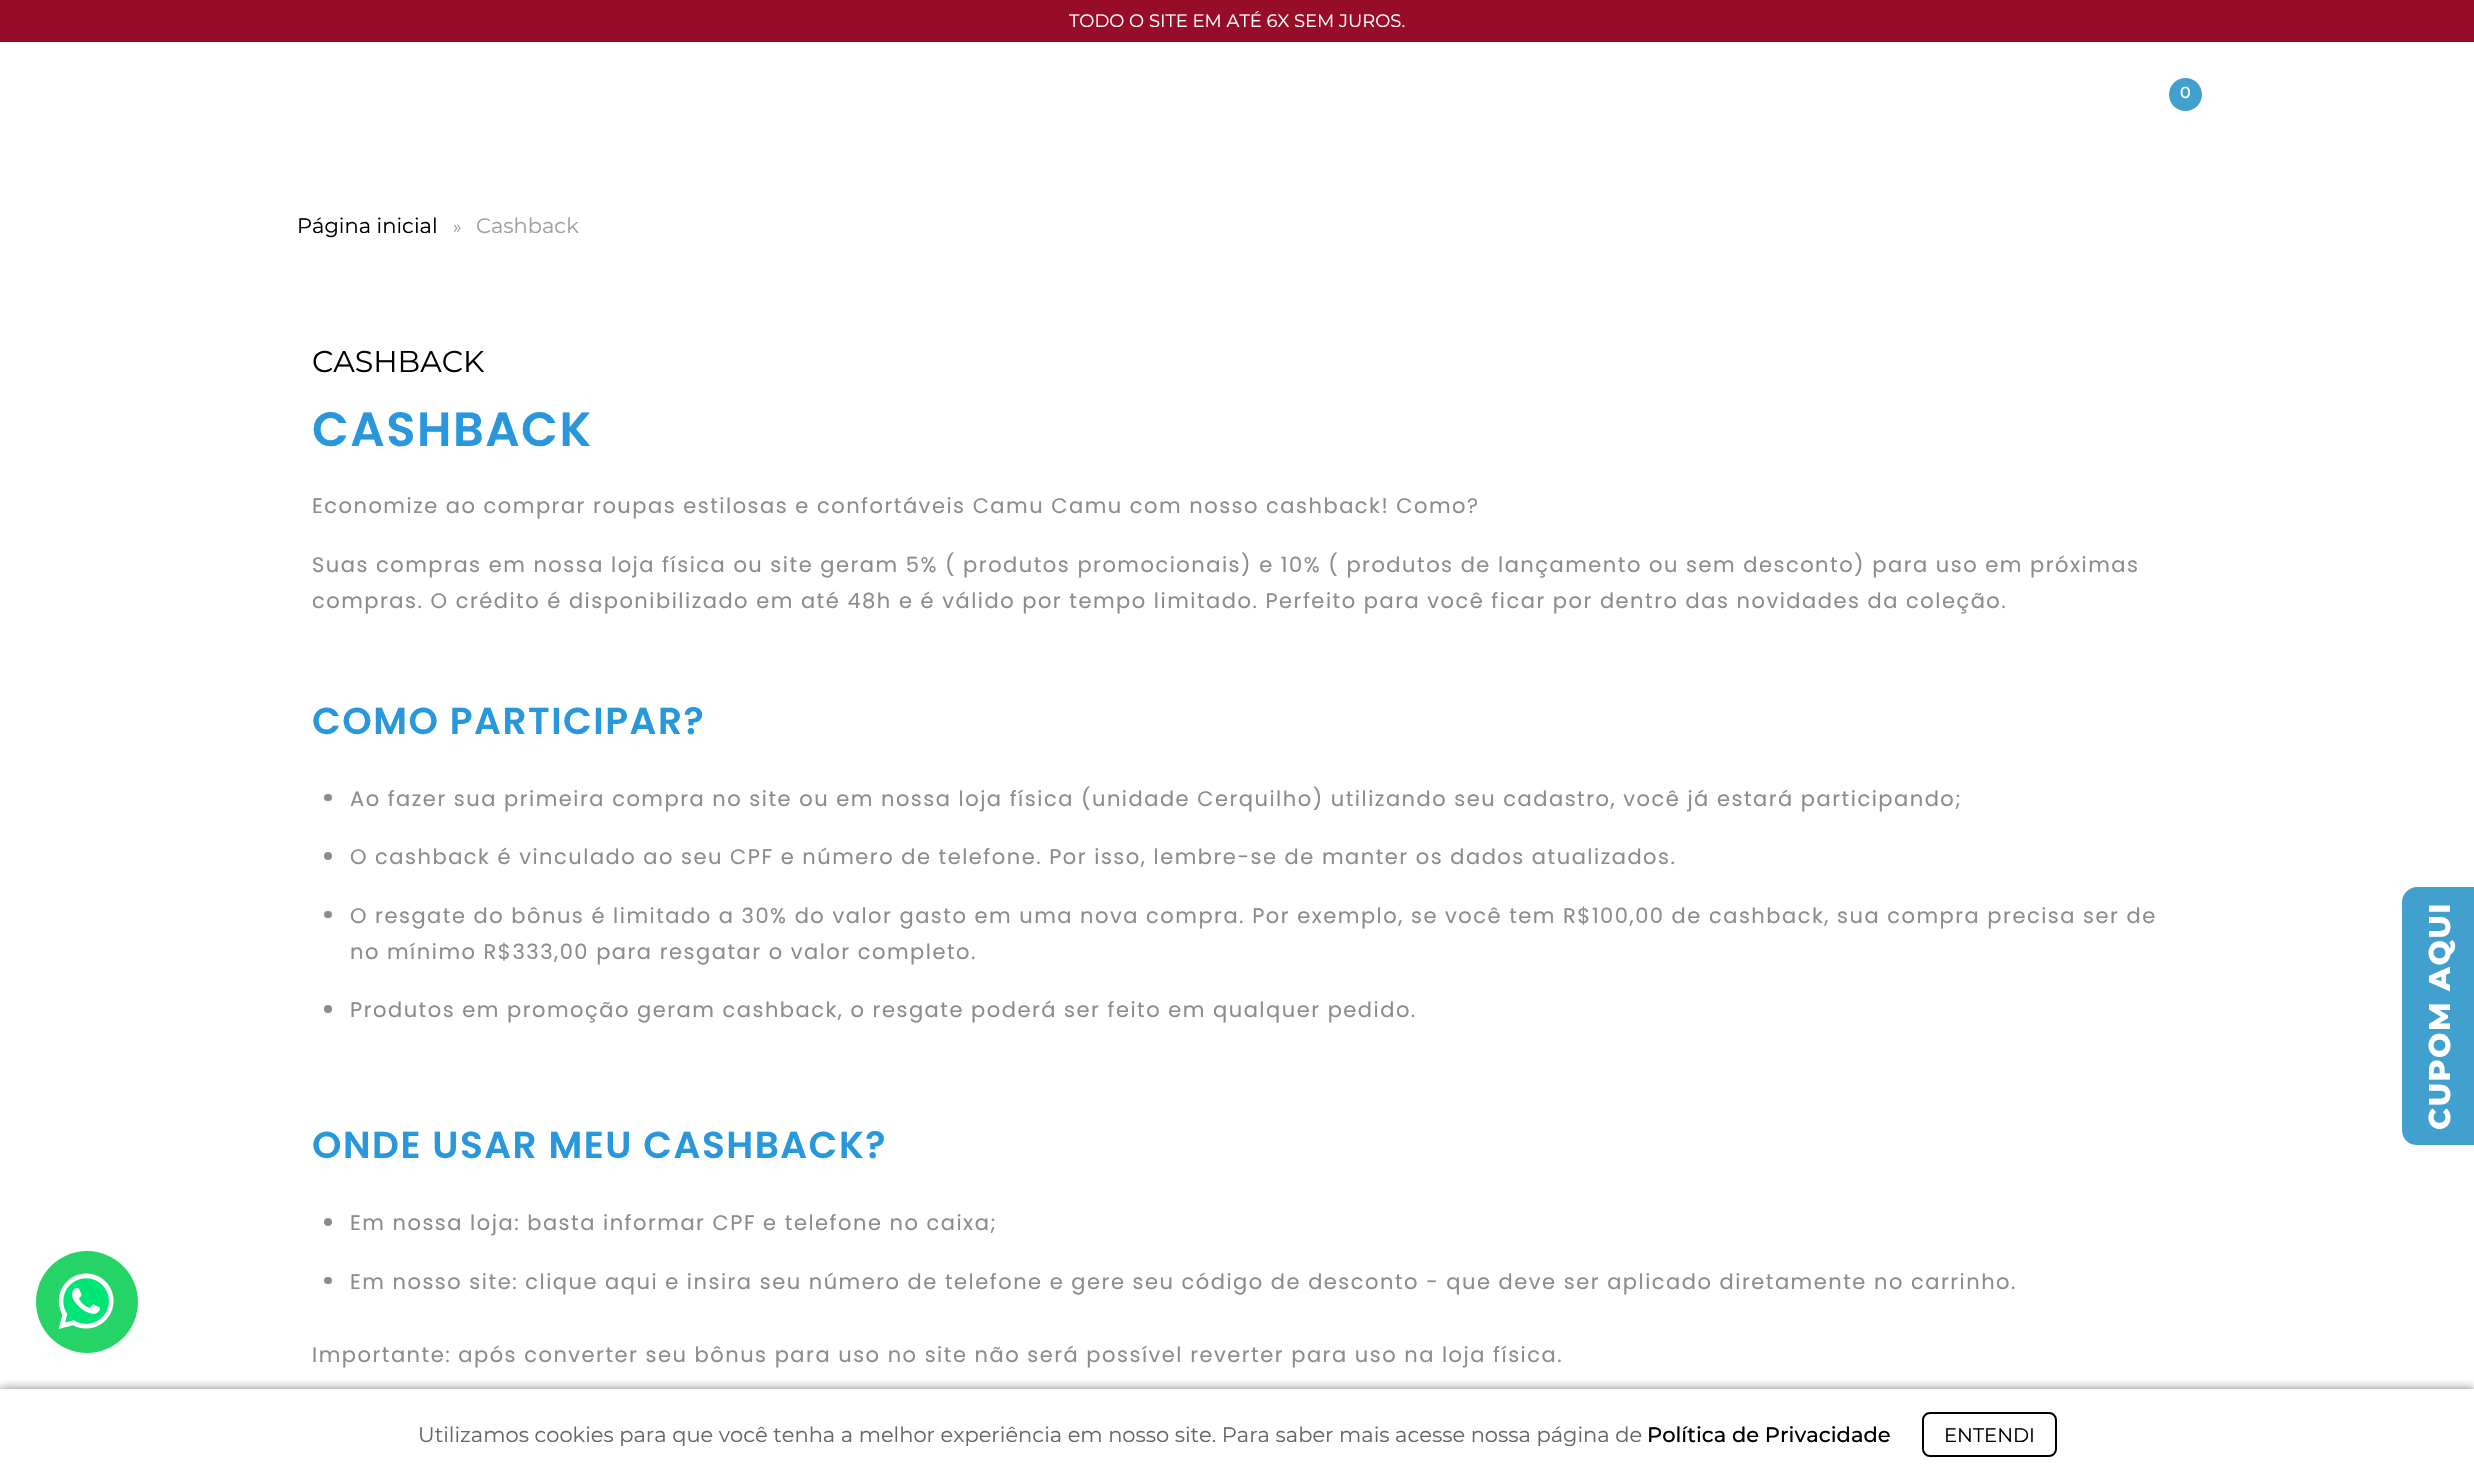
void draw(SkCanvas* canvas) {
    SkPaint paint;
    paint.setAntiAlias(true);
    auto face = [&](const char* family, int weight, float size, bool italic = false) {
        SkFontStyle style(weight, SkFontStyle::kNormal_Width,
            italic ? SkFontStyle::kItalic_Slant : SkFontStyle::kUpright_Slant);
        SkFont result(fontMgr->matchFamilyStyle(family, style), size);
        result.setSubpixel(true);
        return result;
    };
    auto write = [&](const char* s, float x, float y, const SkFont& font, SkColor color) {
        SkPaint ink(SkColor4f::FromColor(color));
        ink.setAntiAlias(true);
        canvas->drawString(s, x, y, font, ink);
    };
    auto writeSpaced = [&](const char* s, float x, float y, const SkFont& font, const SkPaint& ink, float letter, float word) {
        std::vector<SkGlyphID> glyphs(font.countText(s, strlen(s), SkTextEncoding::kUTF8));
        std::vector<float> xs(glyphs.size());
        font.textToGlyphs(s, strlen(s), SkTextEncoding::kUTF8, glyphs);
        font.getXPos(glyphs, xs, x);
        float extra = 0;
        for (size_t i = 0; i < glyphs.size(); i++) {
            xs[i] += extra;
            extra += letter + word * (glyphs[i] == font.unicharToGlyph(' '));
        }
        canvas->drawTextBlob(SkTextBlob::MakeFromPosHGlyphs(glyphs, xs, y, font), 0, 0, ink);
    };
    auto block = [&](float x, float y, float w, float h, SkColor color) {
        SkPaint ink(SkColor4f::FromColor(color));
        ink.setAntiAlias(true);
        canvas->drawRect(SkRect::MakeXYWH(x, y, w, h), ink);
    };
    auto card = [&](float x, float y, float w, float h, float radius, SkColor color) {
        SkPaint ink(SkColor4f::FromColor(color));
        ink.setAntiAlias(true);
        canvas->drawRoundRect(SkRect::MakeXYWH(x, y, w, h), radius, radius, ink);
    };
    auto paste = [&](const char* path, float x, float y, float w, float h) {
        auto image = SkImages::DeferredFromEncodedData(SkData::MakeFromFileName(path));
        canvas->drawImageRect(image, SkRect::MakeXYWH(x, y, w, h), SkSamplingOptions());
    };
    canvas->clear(SK_ColorWHITE);
    block(0, 0, 2474, 42, SkColorSetRGB(151, 13, 39));
    auto kFont1 = face("Montserrat", 400, 18);
    write("TODO O SITE EM ATÉ 6X SEM JUROS.", 1069, 27, kFont1, SK_ColorWHITE);
    paint.setColor(SkColorSetRGB(65, 160, 205));
    canvas->drawCircle(2185.5f, 94.5f, 16.5f, paint);
    auto kFont2 = face("Montserrat", 500, 16);
    write("0", 2180, 98, kFont2, SK_ColorWHITE);
    auto kFont3 = face("Montserrat", 400, 21);
    write("Página inicial", 297, 233, kFont3, SK_ColorBLACK);
    write("»", 453, 233, kFont1, SkColorSetRGB(153, 153, 153));
    write("Cashback", 476, 233, kFont3, SkColorSetRGB(159, 159, 159));
    auto kFont4 = face("Montserrat", 400, 30);
    write("CASHBACK", 312, 372, kFont4, SK_ColorBLACK);
    auto kFont5 = face("Poppins", 600, 48);
    paint.setColor(SkColorSetRGB(40, 151, 219));
    writeSpaced("CASHBACK", 312, 446, kFont5, paint, 1.5f, 0);
    auto kFont6 = face("Poppins", 400, 21);
    paint.setColor(SkColorSetRGB(139, 140, 139));
    writeSpaced("Economize ao comprar roupas estilosas e confortáveis Camu Camu com nosso cashback! Como?", 312, 513, kFont6, paint, 1.5f, 0);
    writeSpaced("Suas compras em nossa loja física ou site geram 5% ( produtos promocionais) e 10% ( produtos de lançamento ou sem desconto) para uso em próximas", 312, 572, kFont6, paint, 1.5f, 0);
    writeSpaced("compras. O crédito é disponibilizado em até 48h e é válido por tempo limitado. Perfeito para você ficar por dentro das novidades da coleção.", 312, 608, kFont6, paint, 1.5f, 0);
    auto kFont7 = face("Poppins", 600, 37.5f);
    paint.setColor(SkColorSetRGB(40, 151, 219));
    writeSpaced("COMO PARTICIPAR?", 312, 734, kFont7, paint, 1.5f, 0);
    card(324, 794, 8, 7, 3.5f, SkColorSetRGB(139, 140, 139));
    paint.setColor(SkColorSetRGB(139, 140, 139));
    writeSpaced("Ao fazer sua primeira compra no site ou em nossa loja física (unidade Cerquilho) utilizando seu cadastro, você já estará participando;", 350, 806, kFont6, paint, 1.5f, 0);
    canvas->drawCircle(328, 856, 4, paint);
    writeSpaced("O cashback é vinculado ao seu CPF e número de telefone. Por isso, lembre-se de manter os dados atualizados.", 350, 864, kFont6, paint, 1.5f, 0);
    card(324, 911, 8, 7, 3.5f, SkColorSetRGB(139, 140, 139));
    writeSpaced("O resgate do bônus é limitado a 30% do valor gasto em uma nova compra. Por exemplo, se você tem R$100,00 de cashback, sua compra precisa ser de", 350, 923, kFont6, paint, 1.5f, 0);
    writeSpaced("no mínimo R$333,00 para resgatar o valor completo.", 350, 959, kFont6, paint, 1.5f, 0);
    canvas->drawCircle(328, 1009, 4, paint);
    writeSpaced("Produtos em promoção geram cashback, o resgate poderá ser feito em qualquer pedido.", 350, 1017, kFont6, paint, 1.5f, 0);
    paint.setColor(SkColorSetRGB(40, 151, 219));
    writeSpaced("ONDE USAR MEU CASHBACK?", 312, 1158, kFont7, paint, 1.5f, 0);
    paint.setColor(SkColorSetRGB(139, 140, 139));
    canvas->drawCircle(328, 1222, 4, paint);
    writeSpaced("Em nossa loja: basta informar CPF e telefone no caixa;", 350, 1230, kFont6, paint, 1.5f, 0);
    card(324, 1277, 8, 7, 3.5f, SkColorSetRGB(139, 140, 139));
    writeSpaced("Em nosso site: clique aqui e insira seu número de telefone e gere seu código de desconto - que deve ser aplicado diretamente no carrinho.", 350, 1289, kFont6, paint, 1.5f, 0);
    writeSpaced("Importante: após converter seu bônus para uso no site não será possível reverter para uso na loja física.", 312, 1362, kFont6, paint, 1.5f, 0);
    paint.setColor(SkColorSetRGB(65, 160, 205));
    canvas->drawPath(SkPathBuilder().moveTo(2402, 1130).lineTo(2402, 902).cubicTo(2402, 894, 2409, 887, 2417, 887).lineTo(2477, 887).lineTo(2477, 1145).lineTo(2417, 1145).cubicTo(2409, 1145, 2402, 1139, 2402, 1130).close().detach(), paint);
    auto kFont8 = face("Montserrat", 800, 30);
    paint.setColor(SK_ColorWHITE);
    canvas->save();
    canvas->rotate(-90, 2450, 1130);
    writeSpaced("CUPOM AQUI", 2450, 1130, kFont8, paint, 1.5f, 0);
    canvas->restore();
    paint.setColor(SkColorSetRGB(37, 211, 102));
    canvas->drawCircle(87, 1302, 51, paint);
    paste("pic1.png", 58, 1273, 56, 56);
    canvas->save();
    canvas->clipRect(SkRect::MakeXYWH(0, 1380, 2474, 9));
    paint.setColor(SkColorSetARGB(128, 0, 0, 0));
    paint.setMaskFilter(SkMaskFilter::MakeBlur(kNormal_SkBlurStyle, 5));
    canvas->drawRect(SkRect::MakeXYWH(0, 1389, 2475, 90), paint);
    paint.setMaskFilter(nullptr);
    canvas->restore();
    write("Utilizamos cookies para que você tenha a melhor experiência em nosso site. Para saber mais acesse nossa página de", 418, 1442, kFont3, SkColorSetRGB(102, 102, 102));
    auto kFont9 = face("Montserrat", 500, 21);
    write("Política de Privacidade", 1647, 1442, kFont9, SK_ColorBLACK);
    paint.setStyle(SkPaint::kStroke_Style);
    paint.setStrokeWidth(2);
    paint.setColor(SK_ColorBLACK);
    canvas->drawRoundRect(SkRect::MakeXYWH(1923, 1413, 133, 43), 7, 7, paint);
    auto kFont10 = face("Montserrat", 400, 19.5f);
    write("ENTENDI", 1944, 1442, kFont10, SK_ColorBLACK);
}
